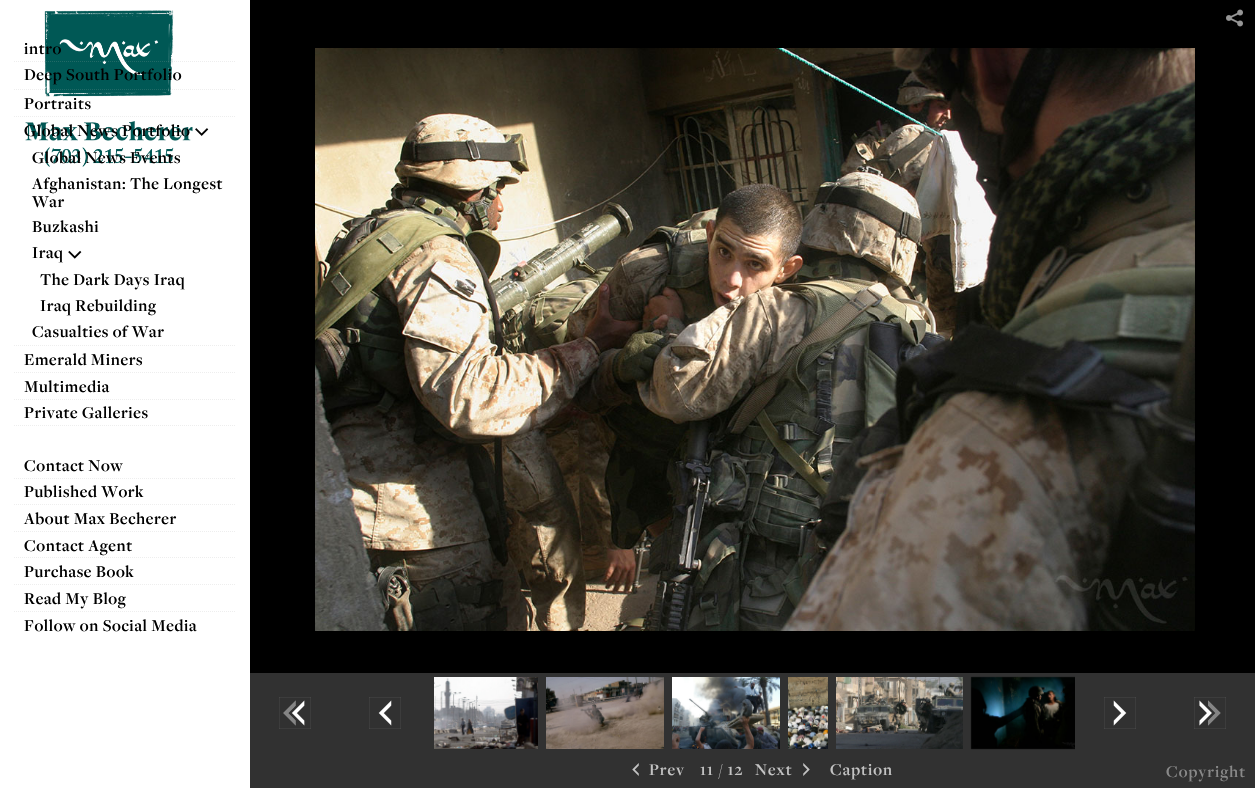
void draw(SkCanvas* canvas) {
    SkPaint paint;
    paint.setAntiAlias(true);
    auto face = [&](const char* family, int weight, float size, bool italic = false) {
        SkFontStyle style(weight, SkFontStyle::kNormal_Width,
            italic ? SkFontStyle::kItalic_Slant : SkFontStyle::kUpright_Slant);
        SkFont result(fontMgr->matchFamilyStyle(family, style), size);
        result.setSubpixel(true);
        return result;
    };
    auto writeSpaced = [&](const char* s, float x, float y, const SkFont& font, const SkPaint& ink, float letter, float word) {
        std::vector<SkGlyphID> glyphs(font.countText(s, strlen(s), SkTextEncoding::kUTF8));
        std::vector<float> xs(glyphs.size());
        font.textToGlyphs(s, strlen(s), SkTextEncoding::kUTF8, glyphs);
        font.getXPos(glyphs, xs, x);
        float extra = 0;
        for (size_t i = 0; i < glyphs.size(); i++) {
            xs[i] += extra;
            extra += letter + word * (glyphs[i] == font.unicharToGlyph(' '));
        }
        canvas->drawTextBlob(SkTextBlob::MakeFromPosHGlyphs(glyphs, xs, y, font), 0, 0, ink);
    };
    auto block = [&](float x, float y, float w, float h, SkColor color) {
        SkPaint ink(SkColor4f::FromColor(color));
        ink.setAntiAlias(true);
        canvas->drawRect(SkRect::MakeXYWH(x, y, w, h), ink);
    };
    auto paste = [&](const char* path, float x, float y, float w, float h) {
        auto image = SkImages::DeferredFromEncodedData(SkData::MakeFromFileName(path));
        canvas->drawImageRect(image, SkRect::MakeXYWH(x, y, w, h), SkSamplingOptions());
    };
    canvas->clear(SK_ColorBLACK);
    paste("pic1.png", 1226, 9, 17, 18);
    block(0, 0, 250, 788, SK_ColorWHITE);
    paste("pic2.png", 25, 10, 168, 157);
    paint.setStyle(SkPaint::kStroke_Style);
    paint.setStrokeWidth(1);
    paint.setColor(SkColorSetARGB(51, 172, 172, 172));
    paint.setPathEffect(SkDashPathEffect::Make({{1, 1}}, 0));
    canvas->drawPath(SkPathBuilder().moveTo(14, 61.5f).lineTo(236, 61.5f).detach(), paint);
    paint.setPathEffect(nullptr);
    auto kFont1 = face("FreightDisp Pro", 600, 17.1f);
    paint.setStyle(SkPaint::kFill_Style);
    paint.setColor(SK_ColorBLACK);
    writeSpaced("intro", 24, 54, kFont1, paint, 0.6f, 0);
    paint.setStyle(SkPaint::kStroke_Style);
    paint.setColor(SkColorSetARGB(51, 172, 172, 172));
    paint.setPathEffect(SkDashPathEffect::Make({{1, 1}}, 0));
    canvas->drawPath(SkPathBuilder().moveTo(14, 89.5f).lineTo(236, 89.5f).detach(), paint);
    paint.setPathEffect(nullptr);
    paint.setStyle(SkPaint::kFill_Style);
    paint.setColor(SK_ColorBLACK);
    writeSpaced("Deep South Portfolio", 24, 80, kFont1, paint, 0.6f, 0);
    paint.setStyle(SkPaint::kStroke_Style);
    paint.setColor(SkColorSetRGB(238, 238, 238));
    paint.setPathEffect(SkDashPathEffect::Make({{1, 1}}, 0));
    canvas->drawPath(SkPathBuilder().moveTo(14, 116.5f).lineTo(236, 116.5f).detach(), paint);
    paint.setPathEffect(nullptr);
    paint.setStyle(SkPaint::kFill_Style);
    paint.setColor(SK_ColorBLACK);
    writeSpaced("Portraits", 24, 109, kFont1, paint, 0.6f, 0);
    paint.setStyle(SkPaint::kStroke_Style);
    paint.setColor(SkColorSetRGB(238, 238, 238));
    paint.setPathEffect(SkDashPathEffect::Make({{1, 1}}, 0));
    canvas->drawPath(SkPathBuilder().moveTo(14, 345.5f).lineTo(236, 345.5f).detach(), paint);
    paint.setPathEffect(nullptr);
    paint.setStyle(SkPaint::kFill_Style);
    paint.setColor(SK_ColorBLACK);
    writeSpaced("Global News Portfolio", 24, 136, kFont1, paint, 0.6f, 0);
    paste("pic3.png", 195, 128, 14, 8);
    writeSpaced("Global News Events", 32, 163, kFont1, paint, 0.6f, 0);
    writeSpaced("Afghanistan: The Longest", 32, 189, kFont1, paint, 0.6f, 0);
    writeSpaced("War", 32, 207, kFont1, paint, 0.6f, 0);
    writeSpaced("Buzkashi", 32, 232, kFont1, paint, 0.6f, 0);
    writeSpaced("Iraq", 32, 258, kFont1, paint, 0.6f, 0);
    paste("pic4.png", 68, 250, 14, 9);
    writeSpaced("The Dark Days Iraq", 40, 285, kFont1, paint, 0.6f, 0);
    writeSpaced("Iraq Rebuilding", 40, 311, kFont1, paint, 0.6f, 0);
    writeSpaced("Casualties of War", 32, 337, kFont1, paint, 0.6f, 0);
    paint.setStyle(SkPaint::kStroke_Style);
    paint.setColor(SkColorSetRGB(238, 238, 238));
    paint.setPathEffect(SkDashPathEffect::Make({{1, 1}}, 0));
    canvas->drawPath(SkPathBuilder().moveTo(14, 372.5f).lineTo(236, 372.5f).detach(), paint);
    paint.setPathEffect(nullptr);
    paint.setStyle(SkPaint::kFill_Style);
    paint.setColor(SK_ColorBLACK);
    writeSpaced("Emerald Miners", 24, 365, kFont1, paint, 0.6f, 0);
    paint.setStyle(SkPaint::kStroke_Style);
    paint.setColor(SkColorSetRGB(238, 238, 238));
    paint.setPathEffect(SkDashPathEffect::Make({{1, 1}}, 0));
    canvas->drawPath(SkPathBuilder().moveTo(14, 399.5f).lineTo(236, 399.5f).detach(), paint);
    paint.setPathEffect(nullptr);
    paint.setStyle(SkPaint::kFill_Style);
    paint.setColor(SK_ColorBLACK);
    writeSpaced("Multimedia", 24, 392, kFont1, paint, 0.6f, 0);
    paint.setStyle(SkPaint::kStroke_Style);
    paint.setColor(SkColorSetRGB(238, 238, 238));
    paint.setPathEffect(SkDashPathEffect::Make({{1, 1}}, 0));
    canvas->drawPath(SkPathBuilder().moveTo(14, 425.5f).lineTo(236, 425.5f).detach(), paint);
    paint.setPathEffect(nullptr);
    paint.setStyle(SkPaint::kFill_Style);
    paint.setColor(SK_ColorBLACK);
    writeSpaced("Private Galleries", 24, 418, kFont1, paint, 0.6f, 0);
    paint.setStyle(SkPaint::kStroke_Style);
    paint.setColor(SkColorSetRGB(238, 238, 238));
    paint.setPathEffect(SkDashPathEffect::Make({{1, 1}}, 0));
    canvas->drawPath(SkPathBuilder().moveTo(14, 478.5f).lineTo(236, 478.5f).detach(), paint);
    paint.setPathEffect(nullptr);
    paint.setStyle(SkPaint::kFill_Style);
    paint.setColor(SK_ColorBLACK);
    writeSpaced("Contact Now", 24, 471, kFont1, paint, 0.6f, 0);
    paint.setStyle(SkPaint::kStroke_Style);
    paint.setColor(SkColorSetRGB(238, 238, 238));
    paint.setPathEffect(SkDashPathEffect::Make({{1, 1}}, 0));
    canvas->drawPath(SkPathBuilder().moveTo(14, 504.5f).lineTo(236, 504.5f).detach(), paint);
    paint.setPathEffect(nullptr);
    paint.setStyle(SkPaint::kFill_Style);
    paint.setColor(SK_ColorBLACK);
    writeSpaced("Published Work", 24, 497, kFont1, paint, 0.6f, 0);
    paint.setStyle(SkPaint::kStroke_Style);
    paint.setColor(SkColorSetRGB(238, 238, 238));
    paint.setPathEffect(SkDashPathEffect::Make({{1, 1}}, 0));
    canvas->drawPath(SkPathBuilder().moveTo(14, 531.5f).lineTo(236, 531.5f).detach(), paint);
    paint.setPathEffect(nullptr);
    paint.setStyle(SkPaint::kFill_Style);
    paint.setColor(SK_ColorBLACK);
    writeSpaced("About Max Becherer", 24, 524, kFont1, paint, 0.6f, 0);
    paint.setStyle(SkPaint::kStroke_Style);
    paint.setColor(SkColorSetRGB(238, 238, 238));
    paint.setPathEffect(SkDashPathEffect::Make({{1, 1}}, 0));
    canvas->drawPath(SkPathBuilder().moveTo(14, 557.5f).lineTo(236, 557.5f).detach(), paint);
    paint.setPathEffect(nullptr);
    paint.setStyle(SkPaint::kFill_Style);
    paint.setColor(SK_ColorBLACK);
    writeSpaced("Contact Agent", 24, 551, kFont1, paint, 0.6f, 0);
    paint.setStyle(SkPaint::kStroke_Style);
    paint.setColor(SkColorSetRGB(238, 238, 238));
    paint.setPathEffect(SkDashPathEffect::Make({{1, 1}}, 0));
    canvas->drawPath(SkPathBuilder().moveTo(14, 584.5f).lineTo(236, 584.5f).detach(), paint);
    paint.setPathEffect(nullptr);
    paint.setStyle(SkPaint::kFill_Style);
    paint.setColor(SK_ColorBLACK);
    writeSpaced("Purchase Book", 24, 577, kFont1, paint, 0.6f, 0);
    paint.setStyle(SkPaint::kStroke_Style);
    paint.setColor(SkColorSetRGB(238, 238, 238));
    paint.setPathEffect(SkDashPathEffect::Make({{1, 1}}, 0));
    canvas->drawPath(SkPathBuilder().moveTo(14, 611.5f).lineTo(236, 611.5f).detach(), paint);
    paint.setPathEffect(nullptr);
    paint.setStyle(SkPaint::kFill_Style);
    paint.setColor(SK_ColorBLACK);
    writeSpaced("Read My Blog", 24, 604, kFont1, paint, 0.6f, 0);
    writeSpaced("Follow on Social Media", 24, 631, kFont1, paint, 0.6f, 0);
    paste("pic5.png", 315, 48, 880, 583);
    block(250, 673, 1005, 115, SkColorSetRGB(49, 49, 49));
    paste("pic6.png", 279, 697, 32, 32);
    paste("pic7.png", 369, 697, 32, 32);
    paste("pic8.png", 434, 677, 104, 72);
    paste("pic9.png", 546, 677, 118, 72);
    paste("pic10.png", 672, 677, 108, 72);
    paste("pic11.png", 788, 677, 40, 72);
    paste("pic12.png", 836, 677, 127, 72);
    paste("pic13.png", 970, 676, 105, 74);
    paste("pic14.png", 1104, 697, 32, 32);
    paste("pic15.png", 1194, 697, 32, 32);
    paste("pic16.png", 632, 763, 7, 13);
    auto kFont2 = face("FreightDisp Pro", 600, 17);
    paint.setColor(SkColorSetRGB(195, 195, 195));
    writeSpaced("Prev", 649, 775, kFont2, paint, 1, 0);
    writeSpaced("11 / 12", 700, 775, kFont2, paint, 1, 0);
    writeSpaced("Next", 755, 775, kFont2, paint, 1, 0);
    paste("pic17.png", 803, 763, 7, 13);
    writeSpaced("Caption", 830, 775, kFont2, paint, 1, 0);
    paint.setColor(SkColorSetRGB(137, 137, 137));
    writeSpaced("Copyright", 1166, 777, kFont2, paint, 1, 0);
}
